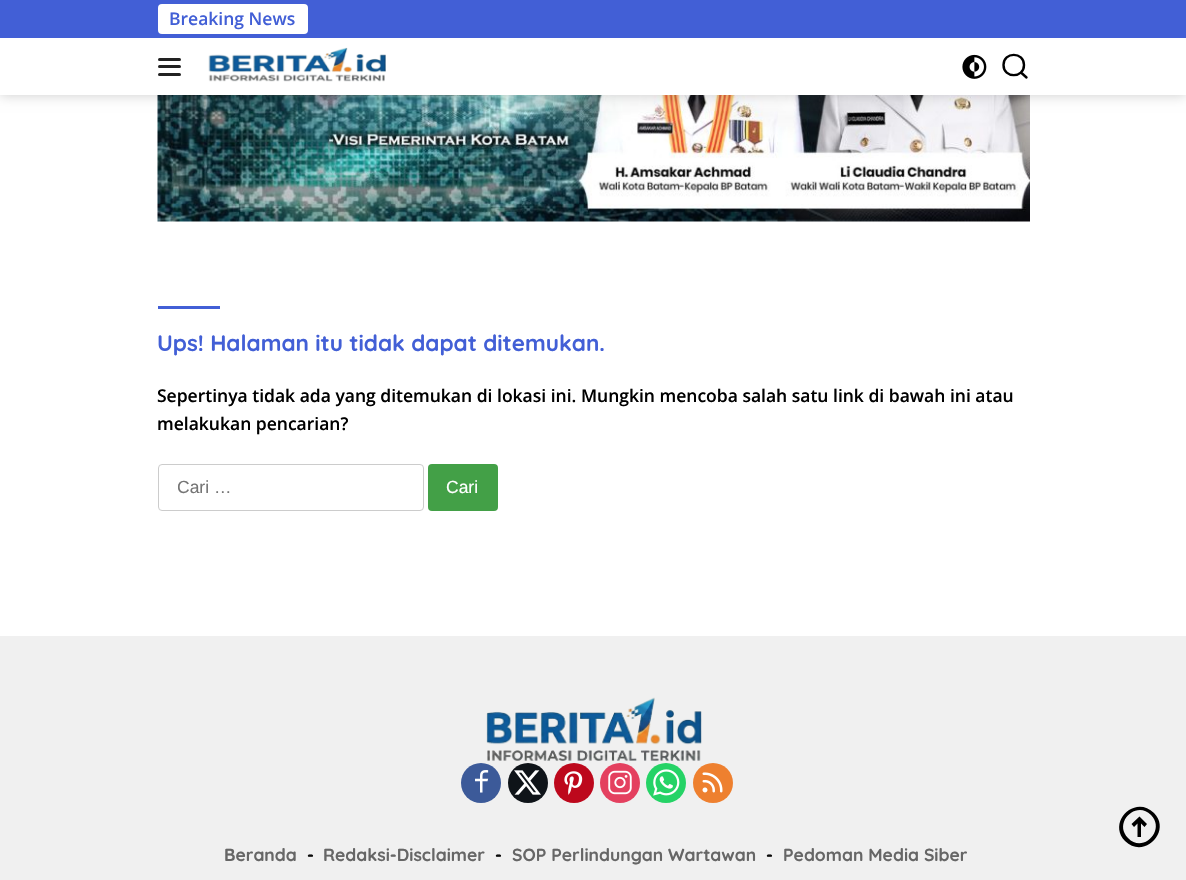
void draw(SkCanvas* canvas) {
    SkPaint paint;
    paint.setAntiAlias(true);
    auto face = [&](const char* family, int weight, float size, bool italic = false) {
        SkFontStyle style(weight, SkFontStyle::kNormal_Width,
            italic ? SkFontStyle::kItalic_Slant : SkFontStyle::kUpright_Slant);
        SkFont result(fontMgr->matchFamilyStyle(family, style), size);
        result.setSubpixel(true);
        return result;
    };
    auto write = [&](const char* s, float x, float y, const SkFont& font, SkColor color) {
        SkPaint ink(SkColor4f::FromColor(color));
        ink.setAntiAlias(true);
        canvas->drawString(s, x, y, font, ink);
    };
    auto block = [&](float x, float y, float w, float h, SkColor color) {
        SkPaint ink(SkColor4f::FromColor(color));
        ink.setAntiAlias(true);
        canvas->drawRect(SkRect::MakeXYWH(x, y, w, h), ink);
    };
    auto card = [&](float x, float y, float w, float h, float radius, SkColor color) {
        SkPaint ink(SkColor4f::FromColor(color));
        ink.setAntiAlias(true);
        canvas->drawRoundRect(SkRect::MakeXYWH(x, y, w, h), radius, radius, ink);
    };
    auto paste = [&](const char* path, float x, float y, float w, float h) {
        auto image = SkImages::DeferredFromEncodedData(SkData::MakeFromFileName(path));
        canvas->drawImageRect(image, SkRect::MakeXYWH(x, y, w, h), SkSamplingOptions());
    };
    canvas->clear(SK_ColorWHITE);
    paste("pic3.png", 157, 95, 873, 127);
    paint.setColor(SkColorSetARGB(51, 0, 0, 0));
    paint.setMaskFilter(SkMaskFilter::MakeBlur(kNormal_SkBlurStyle, 6));
    canvas->drawRect(SkRect::MakeXYWH(0, 0, 1186, 95), paint);
    paint.setMaskFilter(nullptr);
    block(0, 38, 1186, 57, SK_ColorWHITE);
    block(0, 0, 1186, 38, SkColorSetRGB(66, 95, 214));
    card(158, 4, 150, 30, 4, SK_ColorWHITE);
    auto kFont1 = face("Open Sans", 600, 17.5f);
    write("Breaking News", 169, 25, kFont1, SkColorSetRGB(66, 95, 214));
    card(158, 58, 23, 3, 1.5f, SkColorSetRGB(34, 34, 34));
    card(158, 65, 23, 3, 1.5f, SkColorSetRGB(34, 34, 34));
    card(158, 73, 23, 3, 1.5f, SkColorSetRGB(34, 34, 34));
    paste("pic1.png", 208, 47, 178, 35);
    paste("pic2.png", 962, 54, 25, 25);
    paint.setStyle(SkPaint::kStroke_Style);
    paint.setStrokeWidth(2.4f);
    paint.setStrokeCap(SkPaint::kRound_Cap);
    paint.setColor(SK_ColorBLACK);
    canvas->drawPath(SkPathBuilder().moveTo(1026.5f, 77.5f).lineTo(1021, 72.5f).moveTo(1024, 65).cubicTo(1024, 78.5f, 1003.5f, 78.5f, 1003.5f, 65).cubicTo(1003.5f, 51.5f, 1024, 51.5f, 1024, 65).close().detach(), paint);
    block(158, 306, 62, 3, SkColorSetRGB(66, 95, 214));
    auto kFont2 = face("Quicksand", 700, 22.5f);
    write("Ups! Halaman itu tidak dapat ditemukan.", 157, 351, kFont2, SkColorSetRGB(66, 95, 214));
    write("Sepertinya tidak ada yang ditemukan di lokasi ini. Mungkin mencoba salah satu link di bawah ini atau", 157, 402, kFont1, SK_ColorBLACK);
    write("melakukan pencarian?", 157, 430, kFont1, SK_ColorBLACK);
    paint.setStrokeWidth(1);
    paint.setStrokeCap(SkPaint::kButt_Cap);
    paint.setColor(SkColorSetRGB(204, 204, 204));
    canvas->drawRoundRect(SkRect::MakeXYWH(158.5f, 464.5f, 265, 46), 3.5f, 3.5f, paint);
    canvas->save();
    canvas->clipRect(SkRect::MakeXYWH(178, 478, 208, 20));
    auto kFont3 = face("Liberation Sans", 400, 17.5f);
    write("Cari …", 177, 493, kFont3, SkColorSetRGB(117, 117, 117));
    canvas->restore();
    card(428, 464, 70, 47, 4, SkColorSetRGB(67, 160, 71));
    write("Cari", 446, 493, kFont3, SK_ColorWHITE);
    block(0, 636, 1186, 244, SkColorSetRGB(240, 240, 240));
    paste("pic4.png", 486, 697, 216, 64);
    paint.setStyle(SkPaint::kFill_Style);
    paint.setColor(SkColorSetRGB(60, 90, 153));
    canvas->drawCircle(481, 783, 20, paint);
    paste("pic5.png", 475, 770, 14, 23);
    paint.setColor(SkColorSetRGB(15, 20, 25));
    canvas->drawCircle(528, 783, 20, paint);
    paste("pic6.png", 514, 770, 27, 25);
    paint.setColor(SkColorSetRGB(189, 8, 28));
    canvas->drawCircle(574, 783, 20, paint);
    paste("pic7.png", 564, 771, 19, 24);
    paint.setColor(SkColorSetRGB(228, 64, 95));
    canvas->drawCircle(620, 783, 20, paint);
    paste("pic8.png", 608, 770, 24, 25);
    paint.setColor(SkColorSetRGB(37, 211, 102));
    canvas->drawCircle(666, 783, 20, paint);
    paste("pic9.png", 653, 769, 27, 27);
    paint.setColor(SkColorSetRGB(238, 128, 47));
    canvas->drawCircle(713, 783, 20, paint);
    paste("pic10.png", 702, 772, 21, 21);
    auto kFont4 = face("Quicksand", 700, 17.5f);
    write("Beranda", 224, 861, kFont4, SkColorSetRGB(102, 102, 102));
    write("-", 307, 861, kFont4, SkColorSetRGB(10, 10, 10));
    write("Redaksi-Disclaimer", 323, 861, kFont4, SkColorSetRGB(102, 102, 102));
    write("-", 495, 861, kFont4, SkColorSetRGB(10, 10, 10));
    write("SOP Perlindungan Wartawan", 512, 861, kFont4, SkColorSetRGB(102, 102, 102));
    write("-", 766, 861, kFont4, SkColorSetRGB(10, 10, 10));
    write("Pedoman Media Siber", 783, 861, kFont4, SkColorSetRGB(102, 102, 102));
    paint.setColor(SK_ColorBLACK);
    canvas->drawPath(SkPathBuilder().moveTo(1144.5f, 827).lineTo(1147, 824).lineTo(1139.5f, 816.5f).lineTo(1131.5f, 824).lineTo(1134, 827).lineTo(1137.5f, 823.5f).lineTo(1137.5f, 837).lineTo(1141, 837).lineTo(1141, 823.5f).close().detach(), paint);
    canvas->drawPath(SkPathBuilder(SkPathFillType::kEvenOdd).moveTo(1154, 813).cubicTo(1135, 794, 1107, 822, 1125, 841).cubicTo(1144, 860, 1172, 831, 1154, 813).close().moveTo(1151, 815).cubicTo(1136, 800, 1113, 823, 1128, 838).cubicTo(1143, 854, 1166, 830, 1151, 815).close().detach(), paint);
}
